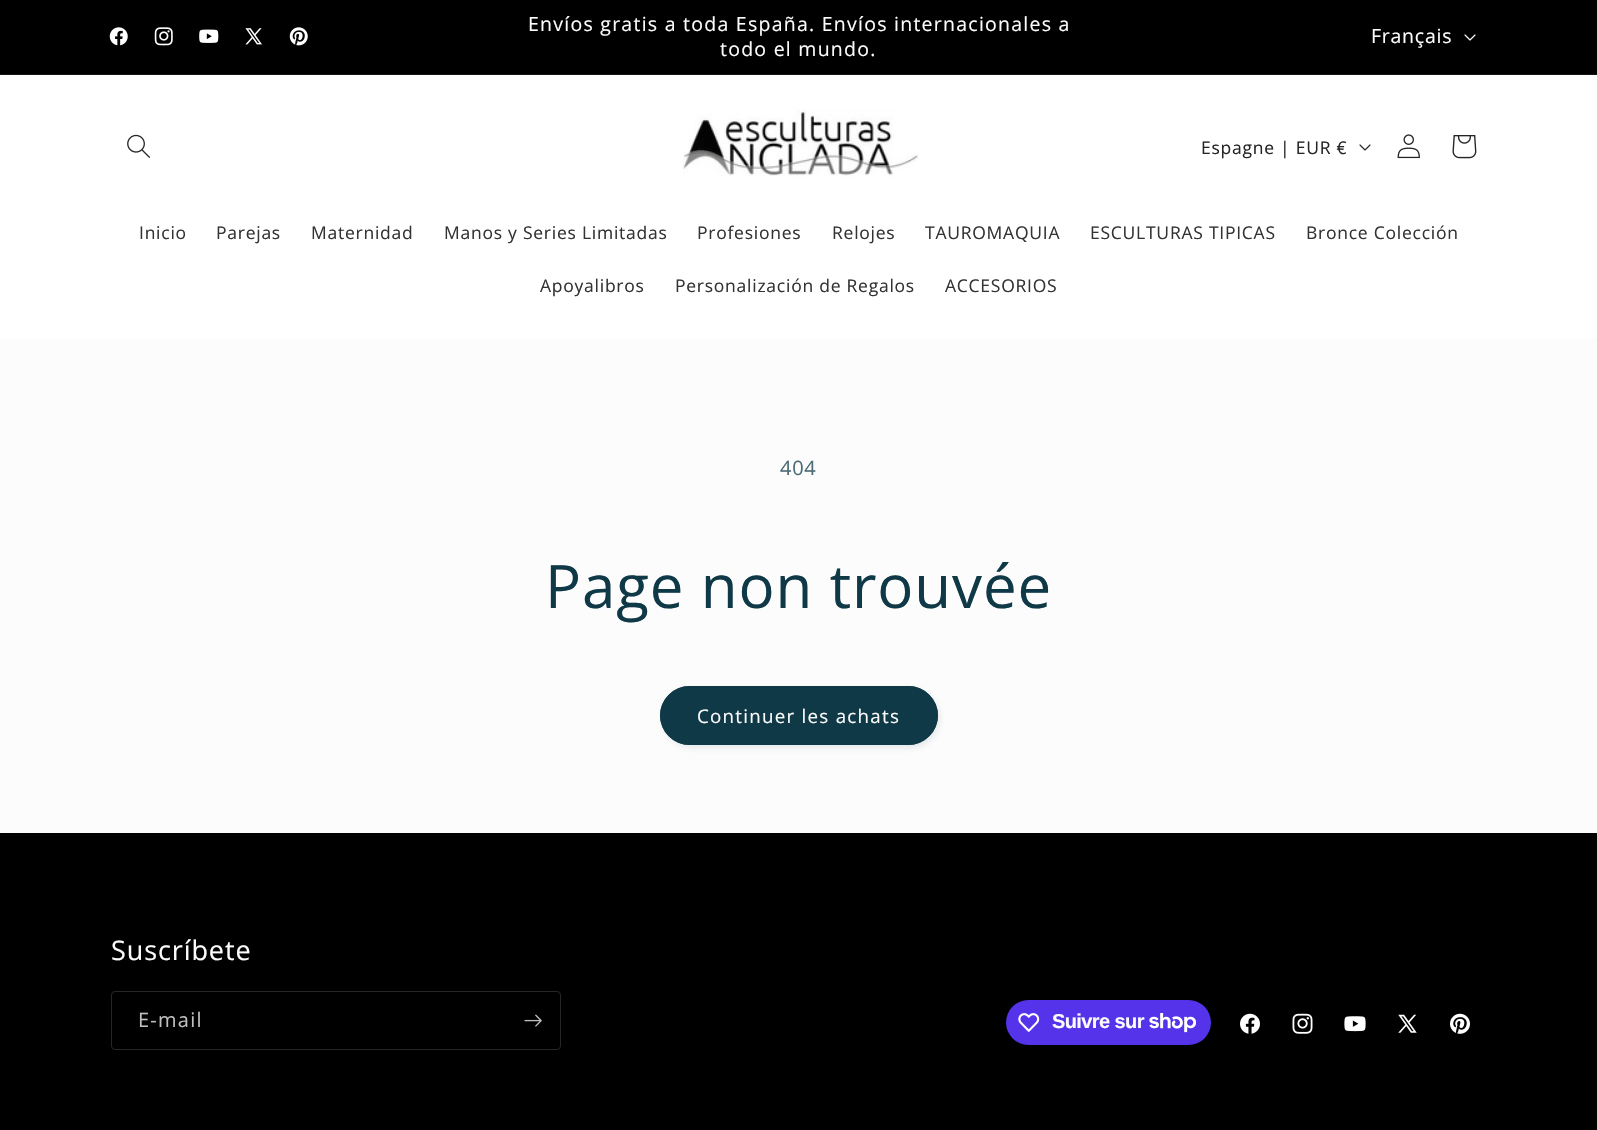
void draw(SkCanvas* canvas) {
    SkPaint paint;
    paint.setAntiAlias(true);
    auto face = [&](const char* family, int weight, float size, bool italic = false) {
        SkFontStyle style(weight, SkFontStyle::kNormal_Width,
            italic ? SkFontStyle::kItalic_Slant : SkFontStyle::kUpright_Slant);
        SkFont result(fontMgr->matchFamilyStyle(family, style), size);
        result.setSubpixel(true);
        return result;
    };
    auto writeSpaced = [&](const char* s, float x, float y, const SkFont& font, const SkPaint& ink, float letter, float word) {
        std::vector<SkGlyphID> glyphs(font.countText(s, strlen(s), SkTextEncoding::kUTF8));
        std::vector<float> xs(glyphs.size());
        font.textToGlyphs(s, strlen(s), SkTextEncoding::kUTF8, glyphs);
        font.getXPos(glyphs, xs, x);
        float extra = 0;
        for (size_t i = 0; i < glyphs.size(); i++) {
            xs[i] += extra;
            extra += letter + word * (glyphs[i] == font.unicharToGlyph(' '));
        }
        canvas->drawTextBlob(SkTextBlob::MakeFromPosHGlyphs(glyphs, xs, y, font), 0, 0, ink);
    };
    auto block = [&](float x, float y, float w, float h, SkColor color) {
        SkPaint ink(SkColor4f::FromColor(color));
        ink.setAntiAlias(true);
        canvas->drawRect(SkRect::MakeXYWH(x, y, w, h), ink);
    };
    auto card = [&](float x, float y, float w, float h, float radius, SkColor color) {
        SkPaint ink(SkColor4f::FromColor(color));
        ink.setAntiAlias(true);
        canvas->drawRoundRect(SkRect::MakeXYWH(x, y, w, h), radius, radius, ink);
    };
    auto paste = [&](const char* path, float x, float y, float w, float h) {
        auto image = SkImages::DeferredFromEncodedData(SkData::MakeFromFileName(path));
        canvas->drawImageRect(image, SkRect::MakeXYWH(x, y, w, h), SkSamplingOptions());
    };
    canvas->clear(SkColorSetRGB(252, 252, 252));
    block(0, 0, 1597, 74, SK_ColorBLACK);
    block(0, 74, 1597, 1, SkColorSetRGB(20, 20, 20));
    paste("pic1.png", 109, 27, 19, 19);
    paste("pic2.png", 154, 27, 19, 19);
    paste("pic3.png", 199, 29, 20, 14);
    paste("pic4.png", 245, 28, 17, 17);
    paste("pic5.png", 289, 27, 19, 19);
    auto kFont1 = face("Open Sans", 400, 19.5f);
    paint.setColor(SkColorSetRGB(252, 252, 252));
    writeSpaced("Envíos gratis a toda España. Envíos internacionales a", 528, 31, kFont1, paint, 1.25f, 0);
    writeSpaced("todo el mundo.", 720, 56, kFont1, paint, 1.25f, 0);
    writeSpaced("Français", 1371, 43, kFont1, paint, 0.75f, 0);
    paste("pic6.png", 1464, 34, 12, 7);
    block(0, 75, 1597, 263, SK_ColorWHITE);
    paste("pic7.png", 127, 134, 23, 24);
    paste("pic8.png", 683, 109, 236, 68);
    auto kFont2 = face("Open Sans", 400, 17.5f);
    paint.setColor(SkColorSetRGB(38, 36, 36));
    writeSpaced("Espagne | EUR €", 1201, 154, kFont2, paint, 0.75f, 0);
    paste("pic9.png", 1359, 144, 12, 7);
    paste("pic10.png", 1397, 134, 23, 25);
    paste("pic11.png", 1452, 135, 25, 24);
    paint.setColor(SkColorSetRGB(51, 51, 51));
    writeSpaced("Inicio", 139, 239, kFont2, paint, 0.75f, 0);
    writeSpaced("Parejas", 216, 239, kFont2, paint, 0.75f, 0);
    writeSpaced("Maternidad", 311, 239, kFont2, paint, 0.75f, 0);
    writeSpaced("Manos y Series Limitadas", 444, 239, kFont2, paint, 0.75f, 0);
    writeSpaced("Profesiones", 697, 239, kFont2, paint, 0.75f, 0);
    writeSpaced("Relojes", 832, 239, kFont2, paint, 0.75f, 0);
    writeSpaced("TAUROMAQUIA", 925, 239, kFont2, paint, 0.75f, 0);
    writeSpaced("ESCULTURAS TIPICAS", 1090, 239, kFont2, paint, 0.75f, 0);
    writeSpaced("Bronce Colección", 1306, 239, kFont2, paint, 0.75f, 0);
    writeSpaced("Apoyalibros", 540, 292, kFont2, paint, 0.75f, 0);
    writeSpaced("Personalización de Regalos", 675, 292, kFont2, paint, 0.75f, 0);
    writeSpaced("ACCESORIOS", 945, 292, kFont2, paint, 0.75f, 0);
    auto kFont3 = face("Open Sans", 400, 20);
    paint.setColor(SkColorSetRGB(75, 106, 117));
    writeSpaced("404", 780, 475, kFont3, paint, 0.75f, 0);
    auto kFont4 = face("Open Sans", 400, 60);
    paint.setColor(SkColorSetRGB(16, 57, 72));
    writeSpaced("Page non trouvée", 545, 608, kFont4, paint, 0.9f, 0);
    paint.setColor(SkColorSetARGB(26, 16, 57, 72));
    paint.setMaskFilter(SkMaskFilter::MakeBlur(kNormal_SkBlurStyle, 3));
    canvas->drawRoundRect(SkRect::MakeXYWH(663, 689, 277, 59), 29.5f, 29.5f, paint);
    paint.setMaskFilter(nullptr);
    card(660, 686, 278, 59, 29.5f, SkColorSetRGB(16, 57, 72));
    paint.setStyle(SkPaint::kStroke_Style);
    paint.setStrokeWidth(1);
    paint.setColor(SkColorSetRGB(16, 57, 72));
    canvas->drawRoundRect(SkRect::MakeXYWH(660.5f, 686.5f, 277, 58), 29, 29, paint);
    auto kFont5 = face("Open Sans", 400, 18.75f);
    paint.setStyle(SkPaint::kFill_Style);
    paint.setColor(SkColorSetRGB(252, 252, 252));
    writeSpaced("Continuer les achats", 697, 723, kFont5, paint, 1.25f, 0);
    block(0, 833, 1597, 297, SK_ColorBLACK);
    auto kFont6 = face("Open Sans", 400, 27);
    writeSpaced("Suscríbete", 111, 960, kFont6, paint, 0.9f, 0);
    paint.setStyle(SkPaint::kStroke_Style);
    paint.setColor(SkColorSetRGB(38, 38, 38));
    canvas->drawRoundRect(SkRect::MakeXYWH(111.5f, 991.5f, 449, 58), 3.5f, 3.5f, paint);
    paint.setStyle(SkPaint::kFill_Style);
    paint.setColor(SkColorSetRGB(191, 191, 191));
    writeSpaced("E-mail", 138, 1027, kFont3, paint, 1.25f, 0);
    paste("pic12.png", 524, 1014, 18, 13);
    card(1006, 1000, 205, 45, 22.5f, SkColorSetRGB(84, 51, 235));
    paste("pic13.png", 1018, 1013, 22, 19);
    auto kFont7 = face("Liberation Sans", 700, 20);
    paint.setColor(SkColorSetRGB(252, 252, 252));
    writeSpaced("Suivre sur", 1052, 1028, kFont7, paint, -0.6f, 0);
    paste("pic14.png", 1149, 1013, 47, 20);
    paste("pic15.png", 1240, 1013, 20, 21);
    paste("pic16.png", 1292, 1013, 21, 21);
    paste("pic17.png", 1344, 1016, 22, 16);
    paste("pic18.png", 1398, 1014, 19, 19);
    paste("pic19.png", 1450, 1013, 20, 21);
}
